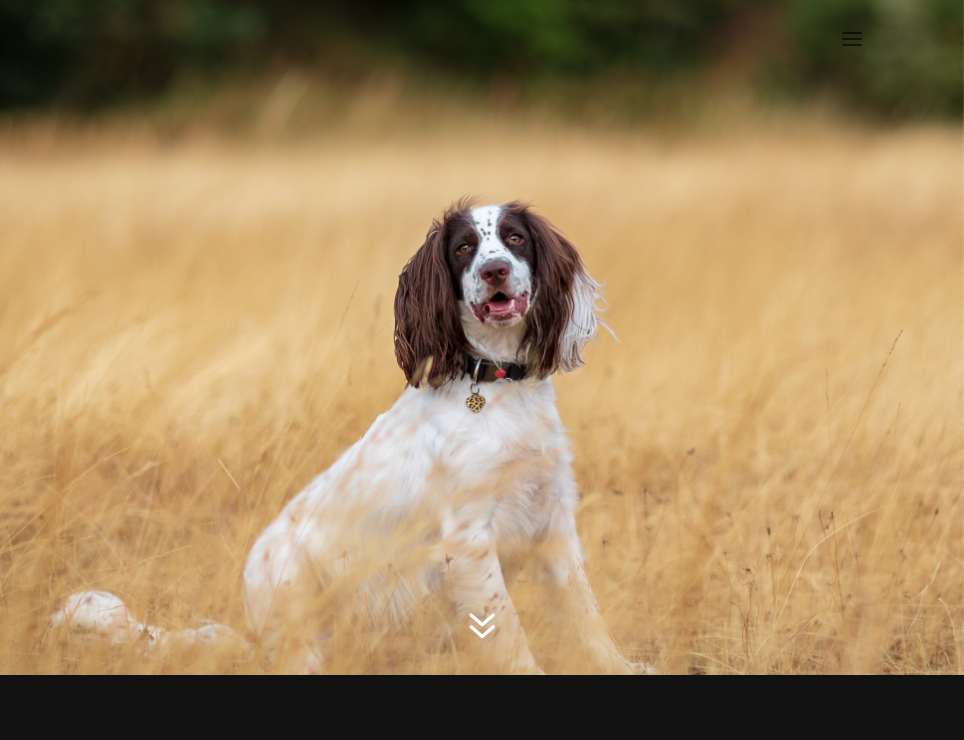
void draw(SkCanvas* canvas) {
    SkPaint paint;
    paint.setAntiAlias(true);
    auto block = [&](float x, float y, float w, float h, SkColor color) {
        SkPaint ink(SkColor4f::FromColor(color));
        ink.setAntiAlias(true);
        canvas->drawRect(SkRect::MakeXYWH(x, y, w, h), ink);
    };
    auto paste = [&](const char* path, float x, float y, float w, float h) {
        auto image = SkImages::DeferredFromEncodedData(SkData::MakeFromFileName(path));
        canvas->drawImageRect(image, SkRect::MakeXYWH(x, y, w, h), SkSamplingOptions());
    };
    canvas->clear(SK_ColorWHITE);
    paste("pic1.png", 0, 0, 964, 675);
    paste("pic2.png", 469, 613, 26, 26);
    block(0, 675, 964, 65, SkColorSetRGB(17, 17, 17));
    paste("pic3.png", 842, 32, 20, 14);
}
